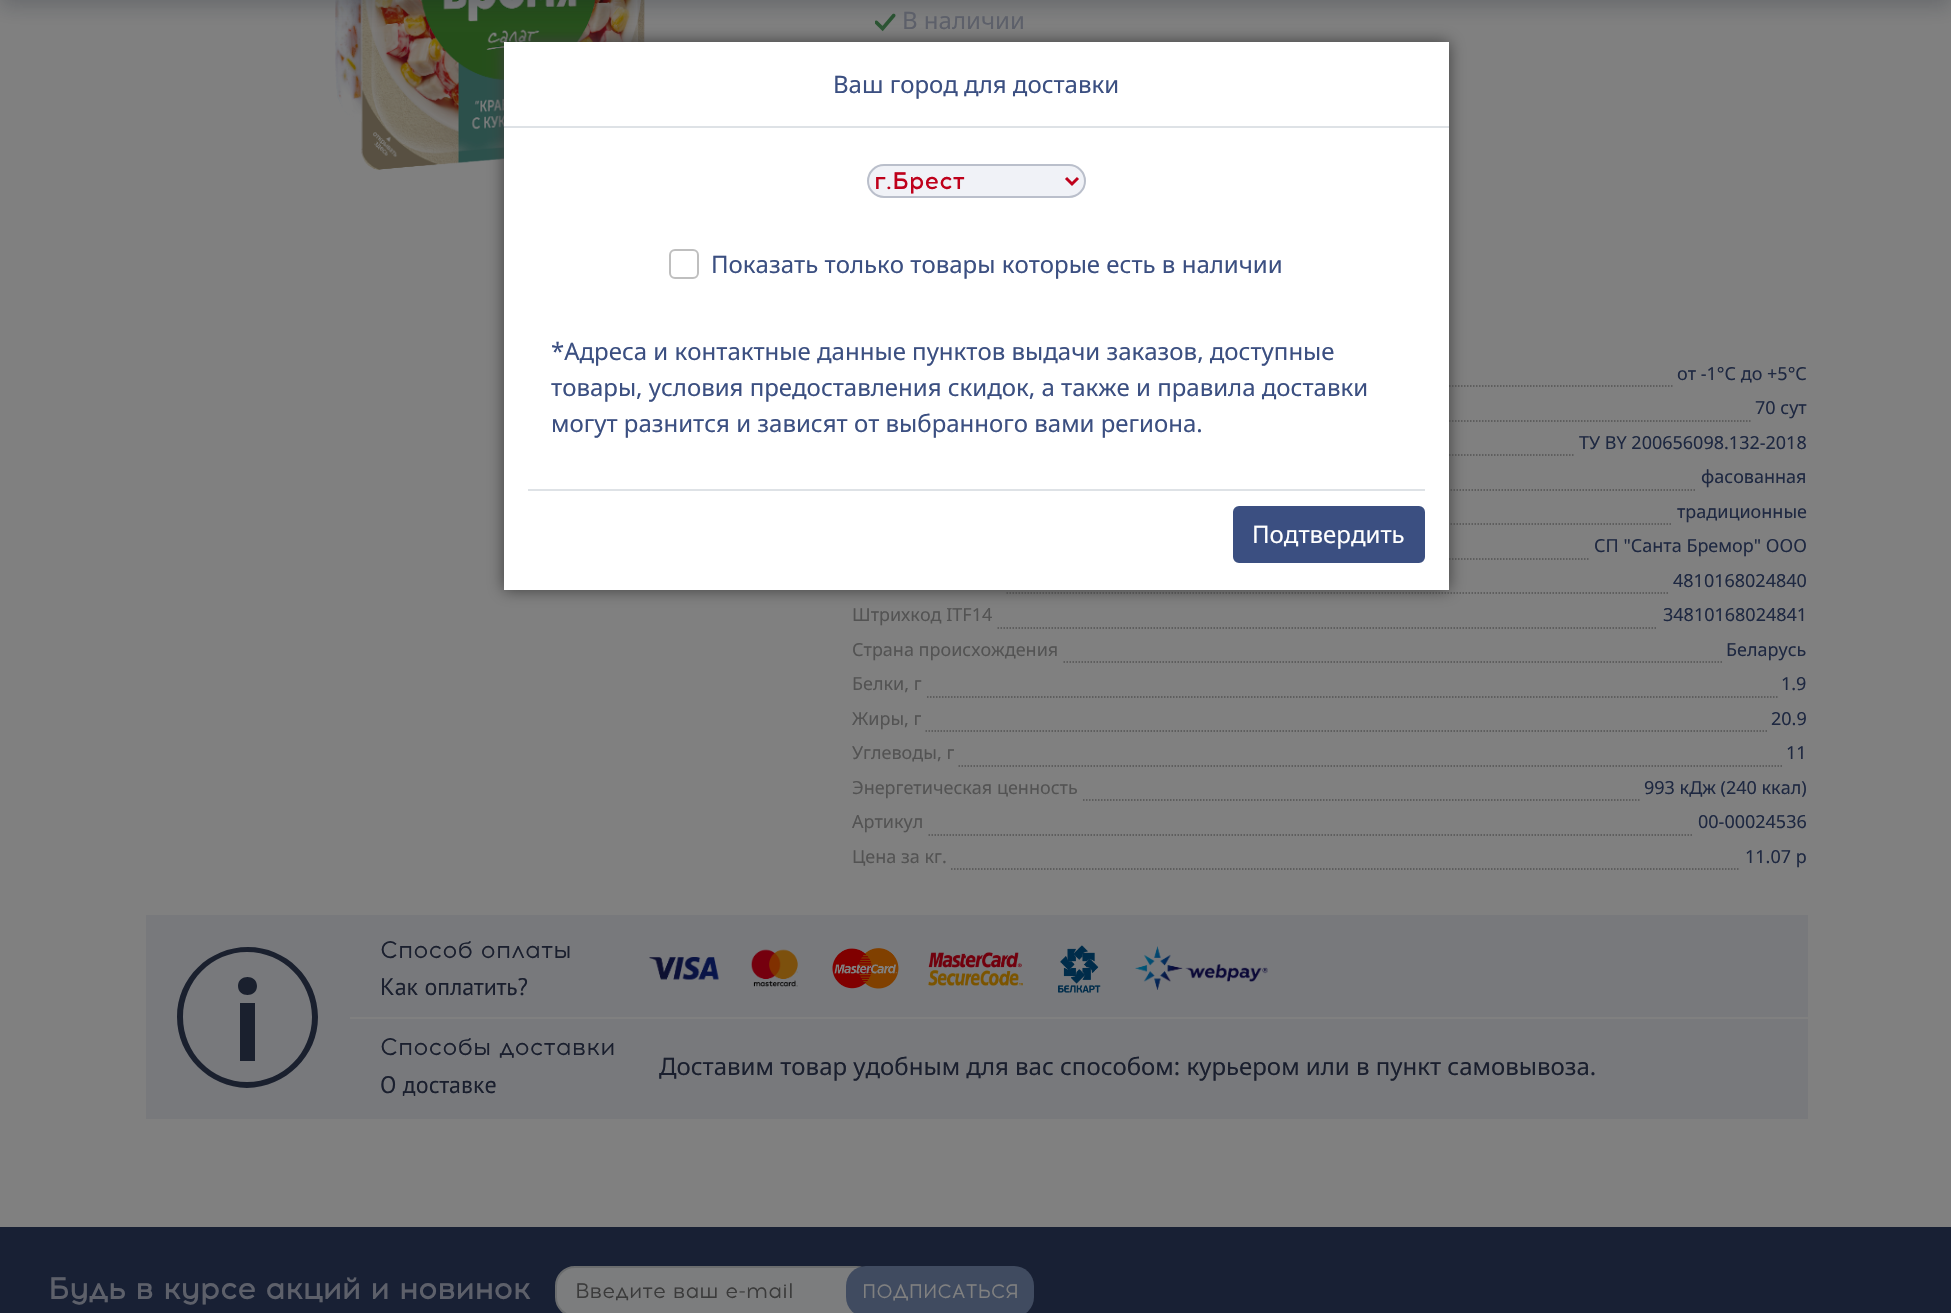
void draw(SkCanvas* canvas) {
    SkPaint paint;
    paint.setAntiAlias(true);
    auto face = [&](const char* family, int weight, float size, bool italic = false) {
        SkFontStyle style(weight, SkFontStyle::kNormal_Width,
            italic ? SkFontStyle::kItalic_Slant : SkFontStyle::kUpright_Slant);
        SkFont result(fontMgr->matchFamilyStyle(family, style), size);
        result.setSubpixel(true);
        return result;
    };
    auto write = [&](const char* s, float x, float y, const SkFont& font, SkColor color) {
        SkPaint ink(SkColor4f::FromColor(color));
        ink.setAntiAlias(true);
        canvas->drawString(s, x, y, font, ink);
    };
    auto block = [&](float x, float y, float w, float h, SkColor color) {
        SkPaint ink(SkColor4f::FromColor(color));
        ink.setAntiAlias(true);
        canvas->drawRect(SkRect::MakeXYWH(x, y, w, h), ink);
    };
    auto card = [&](float x, float y, float w, float h, float radius, SkColor color) {
        SkPaint ink(SkColor4f::FromColor(color));
        ink.setAntiAlias(true);
        canvas->drawRoundRect(SkRect::MakeXYWH(x, y, w, h), radius, radius, ink);
    };
    auto paste = [&](const char* path, float x, float y, float w, float h) {
        auto image = SkImages::DeferredFromEncodedData(SkData::MakeFromFileName(path));
        canvas->drawImageRect(image, SkRect::MakeXYWH(x, y, w, h), SkSamplingOptions());
    };
    canvas->clear(SkColorSetRGB(128, 128, 128));
    paste("pic1.png", 335, 0, 310, 170);
    paste("pic2.png", 335, 0, 310, 170);
    paste("pic3.png", 875, 13, 21, 19);
    paint.setColor(SkColorSetARGB(59, 16, 27, 37));
    paint.setMaskFilter(SkMaskFilter::MakeBlur(kNormal_SkBlurStyle, 10.5f));
    canvas->drawRect(SkRect::MakeXYWH(0, -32, 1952, 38), paint);
    paint.setMaskFilter(nullptr);
    auto kFont1 = face("Noto Sans", 400, 24);
    write("В наличии", 902, 29, kFont1, SkColorSetRGB(93, 96, 106));
    auto kFont2 = face("Noto Sans", 400, 18);
    write("от -1°С до +5°С", 1677, 380, kFont2, SkColorSetRGB(30, 40, 65));
    paint.setStyle(SkPaint::kStroke_Style);
    paint.setStrokeWidth(1.5f);
    paint.setColor(SkColorSetRGB(83, 83, 83));
    paint.setPathEffect(SkDashPathEffect::Make({{1.5f, 1.5f}}, 0));
    canvas->drawPath(SkPathBuilder().moveTo(1149, 386).lineTo(1672.5f, 386).detach(), paint);
    paint.setPathEffect(nullptr);
    write("70 сут", 1755, 414, kFont2, SkColorSetRGB(30, 40, 65));
    paint.setPathEffect(SkDashPathEffect::Make({{1.5f, 1.5f}}, 0));
    canvas->drawPath(SkPathBuilder().moveTo(984, 421).lineTo(1750.5f, 421).detach(), paint);
    paint.setPathEffect(nullptr);
    write("ТУ BY 200656098.132-2018", 1579, 449, kFont2, SkColorSetRGB(30, 40, 65));
    paint.setPathEffect(SkDashPathEffect::Make({{1.5f, 1.5f}}, 0));
    canvas->drawPath(SkPathBuilder().moveTo(1053, 455).lineTo(1575, 455).detach(), paint);
    paint.setPathEffect(nullptr);
    write("фасованная", 1701, 483, kFont2, SkColorSetRGB(30, 40, 65));
    paint.setPathEffect(SkDashPathEffect::Make({{1.5f, 1.5f}}, 0));
    canvas->drawPath(SkPathBuilder().moveTo(976.5f, 490).lineTo(1696.5f, 490).detach(), paint);
    paint.setPathEffect(nullptr);
    write("традиционные", 1677, 518, kFont2, SkColorSetRGB(30, 40, 65));
    paint.setPathEffect(SkDashPathEffect::Make({{1.5f, 1.5f}}, 0));
    canvas->drawPath(SkPathBuilder().moveTo(952.5f, 524).lineTo(1672.5f, 524).detach(), paint);
    paint.setPathEffect(nullptr);
    write("СП \"Санта Бремор\" ООО", 1594, 552, kFont2, SkColorSetRGB(30, 40, 65));
    paint.setPathEffect(SkDashPathEffect::Make({{1.5f, 1.5f}}, 0));
    canvas->drawPath(SkPathBuilder().moveTo(993, 559).lineTo(1590, 559).detach(), paint);
    paint.setPathEffect(nullptr);
    write("4810168024840", 1673, 587, kFont2, SkColorSetRGB(30, 40, 65));
    paint.setPathEffect(SkDashPathEffect::Make({{1.5f, 1.5f}}, 0));
    canvas->drawPath(SkPathBuilder().moveTo(1006.5f, 593).lineTo(1668, 593).detach(), paint);
    paint.setPathEffect(nullptr);
    write("Штрихкод ITF14", 852, 621, kFont2, SkColorSetRGB(83, 83, 83));
    write("34810168024841", 1663, 621, kFont2, SkColorSetRGB(30, 40, 65));
    paint.setPathEffect(SkDashPathEffect::Make({{1.5f, 1.5f}}, 0));
    canvas->drawPath(SkPathBuilder().moveTo(997.5f, 628).lineTo(1657.5f, 628).detach(), paint);
    paint.setPathEffect(nullptr);
    write("Страна происхождения", 852, 656, kFont2, SkColorSetRGB(83, 83, 83));
    write("Беларусь", 1726, 656, kFont2, SkColorSetRGB(30, 40, 65));
    paint.setPathEffect(SkDashPathEffect::Make({{1.5f, 1.5f}}, 0));
    canvas->drawPath(SkPathBuilder().moveTo(1063.5f, 662).lineTo(1722, 662).detach(), paint);
    paint.setPathEffect(nullptr);
    write("Белки, г", 852, 690, kFont2, SkColorSetRGB(83, 83, 83));
    write("1.9", 1781, 690, kFont2, SkColorSetRGB(30, 40, 65));
    paint.setPathEffect(SkDashPathEffect::Make({{1.5f, 1.5f}}, 0));
    canvas->drawPath(SkPathBuilder().moveTo(927, 697).lineTo(1777.5f, 697).detach(), paint);
    paint.setPathEffect(nullptr);
    write("Жиры, г", 852, 725, kFont2, SkColorSetRGB(83, 83, 83));
    write("20.9", 1771, 725, kFont2, SkColorSetRGB(30, 40, 65));
    paint.setPathEffect(SkDashPathEffect::Make({{1.5f, 1.5f}}, 0));
    canvas->drawPath(SkPathBuilder().moveTo(925.5f, 731).lineTo(1767, 731).detach(), paint);
    paint.setPathEffect(nullptr);
    write("Углеводы, г", 852, 759, kFont2, SkColorSetRGB(83, 83, 83));
    write("11", 1786, 759, kFont2, SkColorSetRGB(30, 40, 65));
    paint.setPathEffect(SkDashPathEffect::Make({{1.5f, 1.5f}}, 0));
    canvas->drawPath(SkPathBuilder().moveTo(958.5f, 766).lineTo(1782, 766).detach(), paint);
    paint.setPathEffect(nullptr);
    write("Энергетическая ценность", 852, 794, kFont2, SkColorSetRGB(83, 83, 83));
    write("993 кДж (240 ккал)", 1644, 794, kFont2, SkColorSetRGB(30, 40, 65));
    paint.setPathEffect(SkDashPathEffect::Make({{1.5f, 1.5f}}, 0));
    canvas->drawPath(SkPathBuilder().moveTo(1083, 800).lineTo(1639.5f, 800).detach(), paint);
    paint.setPathEffect(nullptr);
    write("Артикул", 852, 828, kFont2, SkColorSetRGB(83, 83, 83));
    write("00-00024536", 1698, 828, kFont2, SkColorSetRGB(30, 40, 65));
    paint.setPathEffect(SkDashPathEffect::Make({{1.5f, 1.5f}}, 0));
    canvas->drawPath(SkPathBuilder().moveTo(928.5f, 835).lineTo(1693.5f, 835).detach(), paint);
    paint.setPathEffect(nullptr);
    write("Цена за кг.", 852, 863, kFont2, SkColorSetRGB(83, 83, 83));
    write("11.07 р", 1745, 863, kFont2, SkColorSetRGB(30, 40, 65));
    paint.setPathEffect(SkDashPathEffect::Make({{1.5f, 1.5f}}, 0));
    canvas->drawPath(SkPathBuilder().moveTo(951, 869).lineTo(1740, 869).detach(), paint);
    paint.setPathEffect(nullptr);
    block(146, 915, 1662, 204, SkColorSetRGB(120, 121, 124));
    paint.setStyle(SkPaint::kFill_Style);
    paint.setColor(SkColorSetRGB(26, 32, 46));
    canvas->drawPath(SkPathBuilder().moveTo(247, 1088).cubicTo(209, 1087, 177, 1056, 177, 1017).cubicTo(177, 978, 209, 947, 248, 947).cubicTo(286, 947, 318, 978, 318, 1017).cubicTo(318, 1056, 286, 1087, 247, 1088).close().moveTo(183, 1017).cubicTo(183, 1053, 212, 1082, 247, 1082).cubicTo(283, 1082, 312, 1053, 312, 1017).cubicTo(312, 981, 283, 952, 247, 952).cubicTo(212, 952, 183, 981, 183, 1017).close().moveTo(238, 986).cubicTo(238, 974, 257, 974, 257, 986).cubicTo(257, 998, 238, 998, 238, 986).close().moveTo(240, 1061).lineTo(240, 1003).lineTo(255, 1003).lineTo(255, 1061).close().detach(), paint);
    auto kFont3 = face("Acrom", 400, 24);
    write("Способ оплаты", 380, 958, kFont3, SkColorSetRGB(26, 31, 46));
    auto kFont4 = face("PT Sans", 400, 24);
    write("Как оплатить?", 380, 995, kFont4, SkColorSetRGB(26, 31, 46));
    paste("pic4.png", 649, 957, 70, 23);
    paste("pic5.png", 751, 949, 47, 38);
    paste("pic6.png", 832, 948, 67, 41);
    paste("pic7.png", 928, 952, 95, 34);
    paste("pic8.png", 1058, 945, 43, 48);
    paste("pic9.png", 1135, 946, 133, 44);
    block(350, 1017, 1458, 2, SkColorSetRGB(128, 128, 128));
    write("Способы доставки", 380, 1055, kFont3, SkColorSetRGB(26, 31, 46));
    write("О доставке", 380, 1093, kFont4, SkColorSetRGB(26, 31, 46));
    write("Доставим товар удобным для вас способом: курьером или в пункт самовывоза.", 659, 1075, kFont1, SkColorSetRGB(26, 31, 46));
    paint.setColor(SkColorSetRGB(62, 62, 62));
    paint.setMaskFilter(SkMaskFilter::MakeBlur(kNormal_SkBlurStyle, 7.5f));
    canvas->drawRect(SkRect::MakeXYWH(504, 42, 945, 548), paint);
    paint.setMaskFilter(nullptr);
    block(504, 42, 945, 548, SK_ColorWHITE);
    block(504, 126, 945, 2, SkColorSetRGB(222, 226, 230));
    write("Ваш город для доставки", 833, 93, kFont1, SkColorSetRGB(59, 79, 129));
    paint.setColor(SkColorSetRGB(240, 242, 247));
    canvas->drawRoundRect(SkRect::MakeXYWH(868, 165, 217, 32), 16, 16, paint);
    paint.setStyle(SkPaint::kStroke_Style);
    paint.setStrokeWidth(2);
    paint.setColor(SkColorSetRGB(186, 191, 203));
    canvas->drawRoundRect(SkRect::MakeXYWH(868, 165, 217, 32), 16, 16, paint);
    paint.setStrokeWidth(3);
    paint.setColor(SkColorSetRGB(191, 1, 27));
    canvas->drawPath(SkPathBuilder().moveTo(1066, 178).lineTo(1072, 184).lineTo(1078, 178).detach(), paint);
    auto kFont5 = face("Acrom", 500, 24);
    write("г.Брест", 874, 189, kFont5, SkColorSetRGB(191, 1, 27));
    paint.setStrokeWidth(2);
    paint.setColor(SkColorSetRGB(191, 191, 191));
    canvas->drawRoundRect(SkRect::MakeXYWH(670, 250, 28, 28), 5, 5, paint);
    write("Показать только товары которые есть в наличии", 711, 273, kFont1, SkColorSetRGB(59, 79, 129));
    write("*Адреса и контактные данные пунктов выдачи заказов, доступные", 551, 360, kFont1, SkColorSetRGB(59, 79, 129));
    write("товары, условия предоставления скидок, а также и правила доставки", 551, 396, kFont1, SkColorSetRGB(59, 79, 129));
    write("могут разнится и зависят от выбранного вами региона.", 551, 432, kFont1, SkColorSetRGB(59, 79, 129));
    block(528, 489, 897, 2, SkColorSetRGB(222, 226, 230));
    paint.setStyle(SkPaint::kFill_Style);
    paint.setColor(SkColorSetRGB(59, 79, 129));
    canvas->drawRoundRect(SkRect::MakeXYWH(1234, 507, 190, 55), 5, 5, paint);
    paint.setStyle(SkPaint::kStroke_Style);
    canvas->drawRoundRect(SkRect::MakeXYWH(1234, 507, 190, 55), 5, 5, paint);
    write("Подтвердить", 1252, 543, kFont1, SK_ColorWHITE);
    block(0, 1227, 1951, 86, SkColorSetRGB(24, 32, 52));
    auto kFont6 = face("Acrom", 700, 30);
    write("Будь в курсе акций и новинок", 48, 1299, kFont6, SkColorSetRGB(93, 96, 106));
    paint.setStyle(SkPaint::kFill_Style);
    paint.setColor(SkColorSetRGB(124, 125, 126));
    canvas->drawRoundRect(SkRect::MakeXYWH(556, 1267, 319, 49), 19, 19, paint);
    paint.setStyle(SkPaint::kStroke_Style);
    paint.setColor(SkColorSetRGB(107, 109, 110));
    canvas->drawRoundRect(SkRect::MakeXYWH(556, 1267, 319, 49), 19, 19, paint);
    auto kFont7 = face("Acrom", 400, 21);
    write("Введите ваш e-mail", 575, 1298, kFont7, SkColorSetRGB(59, 59, 59));
    card(846, 1266, 188, 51, 20, SkColorSetRGB(64, 75, 96));
    auto kFont8 = face("Acrom", 400, 19.5f);
    write("ПОДПИСАТЬСЯ", 862, 1298, kFont8, SkColorSetRGB(128, 128, 128));
}
